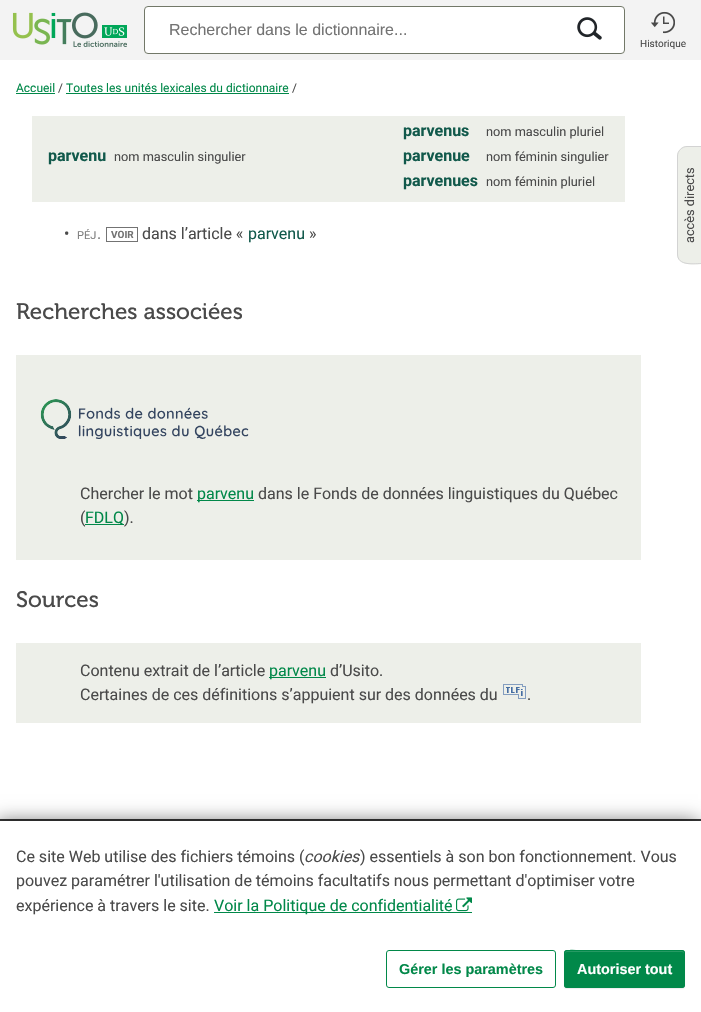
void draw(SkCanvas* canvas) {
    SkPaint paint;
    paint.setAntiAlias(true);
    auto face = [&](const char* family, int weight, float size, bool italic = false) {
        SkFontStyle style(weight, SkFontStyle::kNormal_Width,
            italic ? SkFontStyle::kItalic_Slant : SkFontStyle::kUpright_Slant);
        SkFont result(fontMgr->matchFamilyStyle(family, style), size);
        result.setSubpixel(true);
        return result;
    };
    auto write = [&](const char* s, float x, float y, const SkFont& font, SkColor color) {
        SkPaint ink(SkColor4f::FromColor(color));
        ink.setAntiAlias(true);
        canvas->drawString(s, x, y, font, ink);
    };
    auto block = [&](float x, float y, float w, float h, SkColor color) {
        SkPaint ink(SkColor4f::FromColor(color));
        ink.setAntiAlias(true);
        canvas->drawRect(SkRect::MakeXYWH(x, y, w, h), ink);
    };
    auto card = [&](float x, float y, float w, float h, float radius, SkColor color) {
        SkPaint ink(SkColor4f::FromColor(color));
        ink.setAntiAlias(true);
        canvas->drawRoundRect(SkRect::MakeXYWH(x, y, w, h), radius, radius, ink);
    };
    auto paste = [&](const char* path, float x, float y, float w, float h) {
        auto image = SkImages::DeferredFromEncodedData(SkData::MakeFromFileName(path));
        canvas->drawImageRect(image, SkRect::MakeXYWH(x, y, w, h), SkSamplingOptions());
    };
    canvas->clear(SK_ColorWHITE);
    block(0, 0, 701, 60, SkColorSetRGB(243, 243, 243));
    paste("pic1.png", 12, 12, 115, 35);
    paint.setColor(SK_ColorWHITE);
    canvas->drawRoundRect(SkRect::MakeXYWH(144.5f, 6.5f, 480, 47), 3.5f, 3.5f, paint);
    paint.setStyle(SkPaint::kStroke_Style);
    paint.setStrokeWidth(1);
    paint.setColor(SkColorSetRGB(114, 120, 104));
    canvas->drawRoundRect(SkRect::MakeXYWH(144.5f, 6.5f, 480, 47), 3.5f, 3.5f, paint);
    auto kFont1 = face("Liberation Sans", 400, 16);
    write("Rechercher dans le dictionnaire...", 169, 35, kFont1, SkColorSetRGB(115, 115, 115));
    paste("pic2.png", 577, 17, 25, 23);
    paste("pic3.png", 651, 11, 24, 23);
    auto kFont2 = face("Roboto", 400, 10);
    write("Historique", 640, 47, kFont2, SkColorSetRGB(74, 74, 74));
    auto kFont3 = face("Roboto", 400, 12);
    write("Accueil", 16, 92, kFont3, SkColorSetRGB(1, 136, 73));
    block(16, 93, 39, 1, SkColorSetRGB(1, 136, 73));
    write("/", 58, 92, kFont3, SkColorSetRGB(74, 74, 74));
    write("Toutes les unités lexicales du dictionnaire", 66, 92, kFont3, SkColorSetRGB(1, 136, 73));
    block(66, 93, 223, 1, SkColorSetRGB(1, 136, 73));
    write("/", 292, 92, kFont3, SkColorSetRGB(74, 74, 74));
    block(32, 116, 593, 86, SkColorSetRGB(237, 239, 233));
    auto kFont4 = face("Roboto", 700, 16);
    write("parvenu", 48, 161, kFont4, SkColorSetRGB(17, 89, 75));
    auto kFont5 = face("Roboto", 400, 12.75f);
    write("nom masculin singulier", 114, 161, kFont5, SkColorSetRGB(74, 74, 74));
    write("parvenus", 403, 136, kFont4, SkColorSetRGB(17, 89, 75));
    write("nom masculin pluriel", 486, 136, kFont5, SkColorSetRGB(74, 74, 74));
    write("parvenue", 403, 161, kFont4, SkColorSetRGB(17, 89, 75));
    write("nom féminin singulier", 486, 161, kFont5, SkColorSetRGB(74, 74, 74));
    write("parvenues", 403, 186, kFont4, SkColorSetRGB(17, 89, 75));
    write("nom féminin pluriel", 486, 186, kFont5, SkColorSetRGB(74, 74, 74));
    auto kFont6 = face("Roboto", 400, 16);
    write("•", 64, 239, kFont6, SkColorSetRGB(74, 74, 74));
    auto kFont7 = face("Roboto", 400, 11);
    write("PÉJ", 77, 239, kFont7, SkColorSetRGB(128, 128, 128));
    write(".", 97, 239, kFont6, SkColorSetRGB(128, 128, 128));
    paint.setColor(SkColorSetRGB(115, 115, 115));
    canvas->drawRect(SkRect::MakeXYWH(106.5f, 227.5f, 31, 14), paint);
    auto kFont8 = face("Roboto", 700, 10);
    write("VOIR", 111, 238, kFont8, SkColorSetRGB(115, 115, 115));
    write("dans l’article «", 142, 239, kFont6, SkColorSetRGB(74, 74, 74));
    write("parvenu", 248, 239, kFont6, SkColorSetRGB(17, 89, 75));
    write("»", 309, 239, kFont6, SkColorSetRGB(74, 74, 74));
    auto kFont9 = face("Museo", 400, 22.4f);
    write("Recherches associées", 16, 319, kFont9, SkColorSetRGB(74, 74, 74));
    block(16, 355, 625, 205, SkColorSetRGB(237, 239, 233));
    paste("pic4.png", 40, 399, 209, 40);
    write("Chercher le mot", 80, 499, kFont6, SkColorSetRGB(74, 74, 74));
    block(197, 500, 57, 1, SkColorSetRGB(1, 136, 73));
    write("parvenu", 197, 499, kFont6, SkColorSetRGB(1, 136, 73));
    write("dans le Fonds de données linguistiques du Québec", 258, 499, kFont6, SkColorSetRGB(74, 74, 74));
    write("(", 80, 523, kFont6, SkColorSetRGB(74, 74, 74));
    block(85, 524, 39, 1, SkColorSetRGB(1, 136, 73));
    write("FDLQ", 85, 523, kFont6, SkColorSetRGB(1, 136, 73));
    write(").", 124, 523, kFont6, SkColorSetRGB(74, 74, 74));
    write("Sources", 16, 607, kFont9, SkColorSetRGB(74, 74, 74));
    block(16, 643, 625, 80, SkColorSetRGB(237, 239, 233));
    write("Contenu extrait de l’article", 80, 676, kFont6, SkColorSetRGB(74, 74, 74));
    block(269, 677, 57, 1, SkColorSetRGB(1, 136, 73));
    write("parvenu", 269, 676, kFont6, SkColorSetRGB(1, 136, 73));
    write("d’Usito.", 330, 676, kFont6, SkColorSetRGB(74, 74, 74));
    write("Certaines de ces définitions s’appuient sur des données du", 80, 700, kFont6, SkColorSetRGB(74, 74, 74));
    paste("pic5.png", 503, 684, 23, 15);
    write(".", 527, 700, kFont6, SkColorSetRGB(74, 74, 74));
    block(0, 819, 701, 2, SkColorSetRGB(58, 58, 58));
    paint.setStyle(SkPaint::kFill_Style);
    paint.setColor(SkColorSetARGB(140, 0, 0, 0));
    paint.setMaskFilter(SkMaskFilter::MakeBlur(kNormal_SkBlurStyle, 9));
    canvas->drawRect(SkRect::MakeXYWH(-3, 821, 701, 191), paint);
    paint.setMaskFilter(nullptr);
    block(0, 821, 701, 191, SK_ColorWHITE);
    write("Ce site Web utilise des fichiers témoins (", 16, 862, kFont6, SkColorSetRGB(74, 74, 74));
    auto kFont10 = face("Roboto", 400, 16, true);
    write("cookies", 304, 862, kFont10, SkColorSetRGB(74, 74, 74));
    write(") essentiels à son bon fonctionnement. Vous", 360, 862, kFont6, SkColorSetRGB(74, 74, 74));
    write("pouvez paramétrer l'utilisation de témoins facultatifs nous permettant d'optimiser votre", 16, 886, kFont6, SkColorSetRGB(74, 74, 74));
    write("expérience à travers le site.", 16, 911, kFont6, SkColorSetRGB(74, 74, 74));
    block(214, 912, 258, 1, SkColorSetRGB(1, 136, 73));
    write("Voir la Politique de confidentialité", 214, 911, kFont6, SkColorSetRGB(1, 136, 73));
    paste("pic6.png", 456, 897, 16, 15);
    paint.setStyle(SkPaint::kStroke_Style);
    paint.setColor(SkColorSetRGB(1, 136, 73));
    canvas->drawRoundRect(SkRect::MakeXYWH(386.5f, 950.5f, 169, 37), 2.5f, 2.5f, paint);
    auto kFont11 = face("Liberation Sans", 700, 14.4f);
    write("Gérer les paramètres", 399, 974, kFont11, SkColorSetRGB(1, 136, 73));
    paint.setStyle(SkPaint::kFill_Style);
    paint.setColor(SkColorSetARGB(18, 0, 0, 0));
    paint.setMaskFilter(SkMaskFilter::MakeBlur(kNormal_SkBlurStyle, 0.5f));
    canvas->drawRoundRect(SkRect::MakeXYWH(564, 951, 121, 38), 3, 3, paint);
    paint.setMaskFilter(nullptr);
    card(564, 950, 121, 38, 3, SkColorSetRGB(1, 136, 73));
    paint.setColor(SkColorSetRGB(39, 154, 100));
    canvas->drawPath(SkPathBuilder().moveTo(567, 952).lineTo(682, 952).cubicTo(683, 952, 684, 953, 684, 954).cubicTo(684, 953, 684, 952, 683, 951).lineTo(586, 951).cubicTo(580, 951, 565, 947, 565, 954).cubicTo(565, 953, 566, 952, 567, 952).close().detach(), paint);
    paint.setStyle(SkPaint::kStroke_Style);
    paint.setColor(SkColorSetRGB(1, 136, 73));
    canvas->drawRoundRect(SkRect::MakeXYWH(564.5f, 950.5f, 120, 37), 2.5f, 2.5f, paint);
    write("Autoriser tout", 577, 974, kFont11, SK_ColorWHITE);
    paint.setStyle(SkPaint::kFill_Style);
    paint.setColor(SkColorSetRGB(237, 239, 233));
    canvas->drawPath(SkPathBuilder().moveTo(677, 254).lineTo(677, 156).cubicTo(677, 151, 682, 146, 687, 146).lineTo(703, 146).lineTo(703, 264).cubicTo(695, 264, 677, 267, 677, 254).close().detach(), paint);
    paint.setStyle(SkPaint::kStroke_Style);
    paint.setColor(SkColorSetRGB(211, 211, 211));
    canvas->drawPath(SkPathBuilder().moveTo(677.5f, 254).lineTo(677.5f, 156).cubicTo(677.5f, 151, 682, 146.5f, 687, 146.5f).lineTo(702.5f, 146.5f).lineTo(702.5f, 263.5f).cubicTo(694.5f, 263.5f, 677.5f, 266.5f, 677.5f, 254).close().detach(), paint);
    canvas->save();
    canvas->rotate(-90, 694, 243);
    write("accès directs", 694, 243, kFont5, SkColorSetRGB(74, 74, 74));
    canvas->restore();
}
